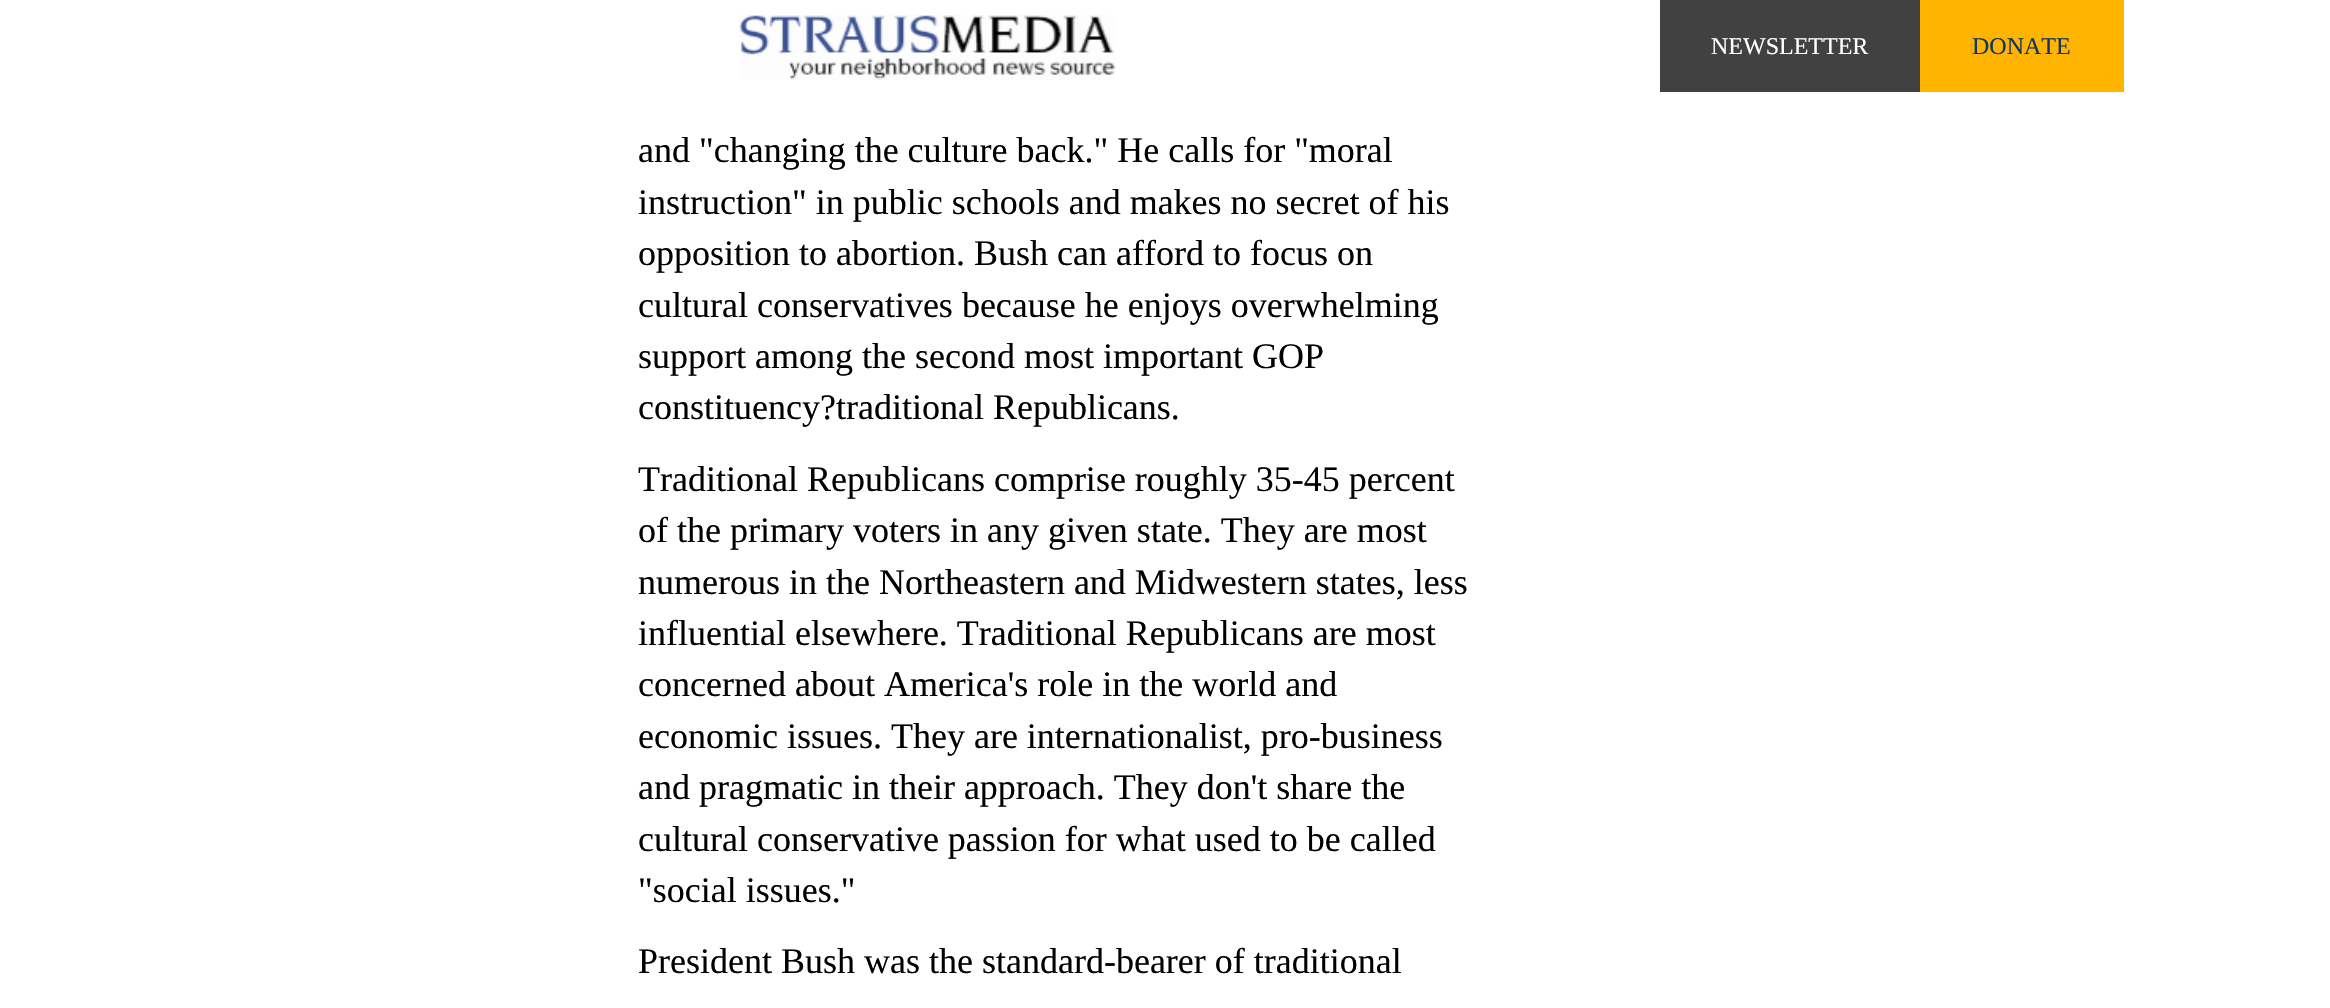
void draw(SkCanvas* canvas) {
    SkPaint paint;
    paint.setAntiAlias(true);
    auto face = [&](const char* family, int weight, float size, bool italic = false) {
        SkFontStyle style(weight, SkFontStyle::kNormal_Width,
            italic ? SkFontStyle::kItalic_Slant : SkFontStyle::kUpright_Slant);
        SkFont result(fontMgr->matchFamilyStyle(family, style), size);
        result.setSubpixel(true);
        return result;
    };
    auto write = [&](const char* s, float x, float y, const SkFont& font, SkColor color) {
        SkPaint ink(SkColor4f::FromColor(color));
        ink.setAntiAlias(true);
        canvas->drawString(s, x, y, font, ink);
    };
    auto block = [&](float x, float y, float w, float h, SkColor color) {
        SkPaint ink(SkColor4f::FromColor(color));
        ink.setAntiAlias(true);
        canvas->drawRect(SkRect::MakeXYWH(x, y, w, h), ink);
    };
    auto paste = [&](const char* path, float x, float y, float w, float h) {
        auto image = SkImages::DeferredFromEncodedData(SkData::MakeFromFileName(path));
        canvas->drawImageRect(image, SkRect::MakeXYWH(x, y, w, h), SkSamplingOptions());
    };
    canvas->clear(SK_ColorWHITE);
    paste("pic1.png", 739, 15, 377, 65);
    block(1660, 0, 260, 92, SkColorSetRGB(65, 65, 65));
    auto kFont1 = face("Liberation Serif", 400, 24);
    write("NEWSLETTER", 1711, 54, kFont1, SK_ColorWHITE);
    block(1920, 0, 204, 92, SkColorSetRGB(255, 180, 0));
    write("DONATE", 1972, 54, kFont1, SkColorSetRGB(19, 51, 103));
    auto kFont2 = face("Liberation Serif", 400, 36);
    write("and \"changing the culture back.\" He calls for \"moral", 638, 162, kFont2, SK_ColorBLACK);
    write("instruction\" in public schools and makes no secret of his", 638, 214, kFont2, SK_ColorBLACK);
    write("opposition to abortion. Bush can afford to focus on", 638, 265, kFont2, SK_ColorBLACK);
    write("cultural conservatives because he enjoys overwhelming", 638, 317, kFont2, SK_ColorBLACK);
    write("support among the second most important GOP", 638, 368, kFont2, SK_ColorBLACK);
    write("constituency?traditional Republicans.", 638, 419, kFont2, SK_ColorBLACK);
    write("Traditional Republicans comprise roughly 35-45 percent", 638, 491, kFont2, SK_ColorBLACK);
    write("of the primary voters in any given state. They are most", 638, 542, kFont2, SK_ColorBLACK);
    write("numerous in the Northeastern and Midwestern states, less", 638, 594, kFont2, SK_ColorBLACK);
    write("influential elsewhere. Traditional Republicans are most", 638, 645, kFont2, SK_ColorBLACK);
    write("concerned about America's role in the world and", 638, 696, kFont2, SK_ColorBLACK);
    write("economic issues. They are internationalist, pro-business", 638, 748, kFont2, SK_ColorBLACK);
    write("and pragmatic in their approach. They don't share the", 638, 799, kFont2, SK_ColorBLACK);
    write("cultural conservative passion for what used to be called", 638, 851, kFont2, SK_ColorBLACK);
    write("\"social issues.\"", 638, 902, kFont2, SK_ColorBLACK);
    write("President Bush was the standard-bearer of traditional", 638, 973, kFont2, SK_ColorBLACK);
}
